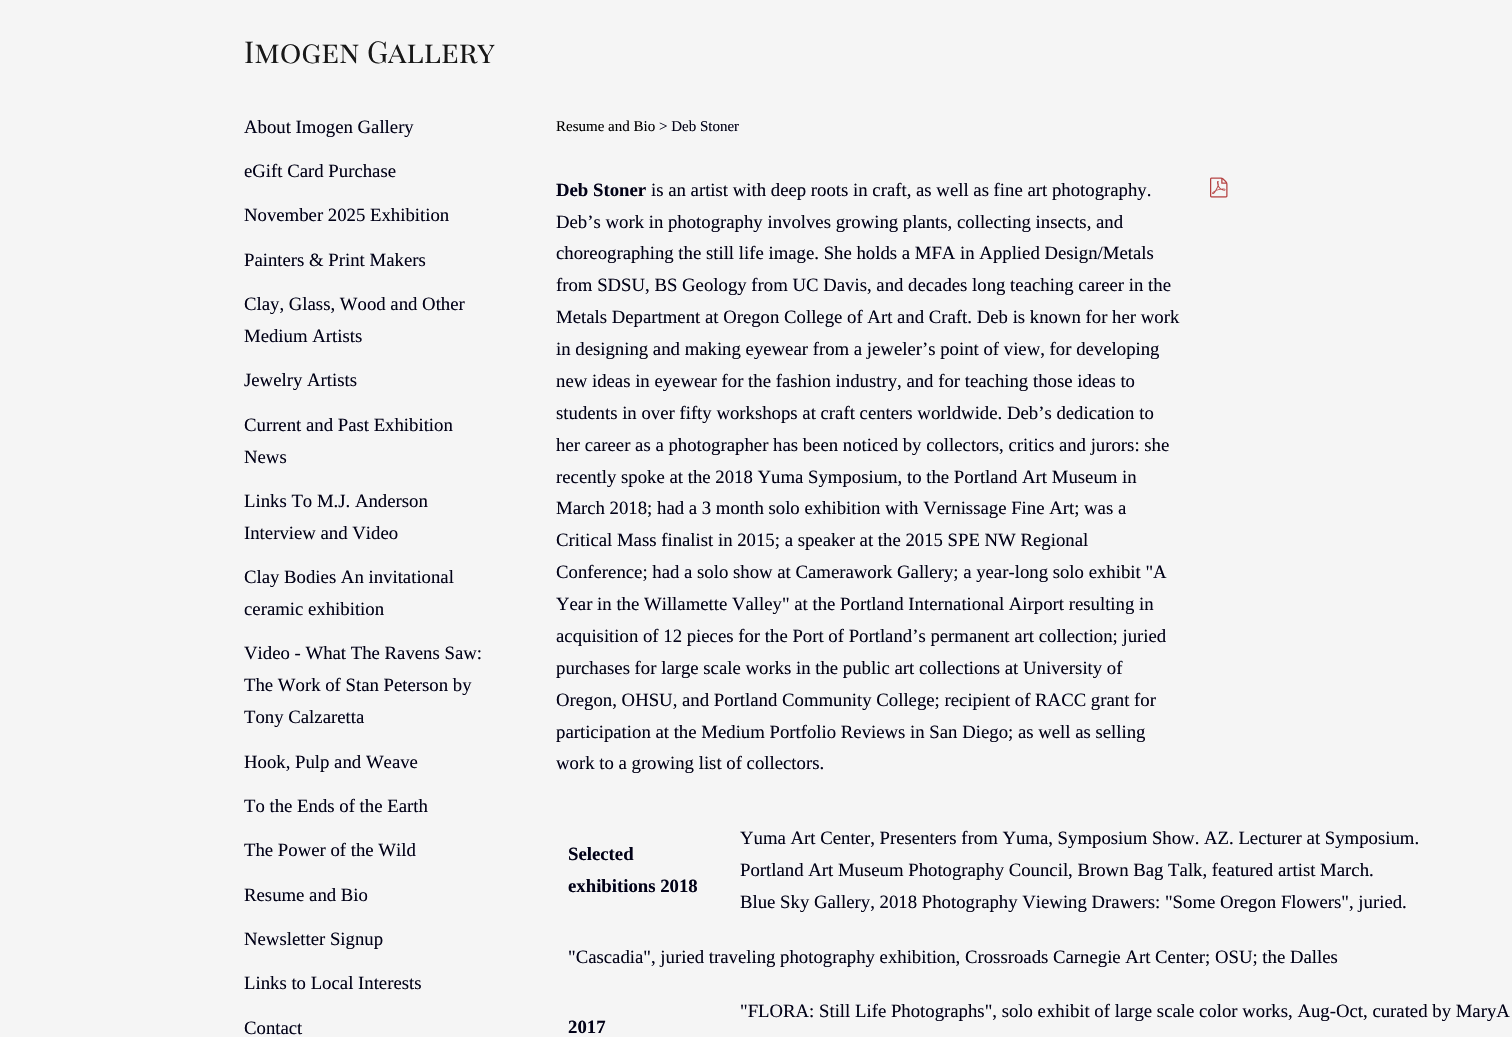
void draw(SkCanvas* canvas) {
    SkPaint paint;
    paint.setAntiAlias(true);
    auto face = [&](const char* family, int weight, float size, bool italic = false) {
        SkFontStyle style(weight, SkFontStyle::kNormal_Width,
            italic ? SkFontStyle::kItalic_Slant : SkFontStyle::kUpright_Slant);
        SkFont result(fontMgr->matchFamilyStyle(family, style), size);
        result.setSubpixel(true);
        return result;
    };
    auto write = [&](const char* s, float x, float y, const SkFont& font, SkColor color) {
        SkPaint ink(SkColor4f::FromColor(color));
        ink.setAntiAlias(true);
        canvas->drawString(s, x, y, font, ink);
    };
    auto paste = [&](const char* path, float x, float y, float w, float h) {
        auto image = SkImages::DeferredFromEncodedData(SkData::MakeFromFileName(path));
        canvas->drawImageRect(image, SkRect::MakeXYWH(x, y, w, h), SkSamplingOptions());
    };
    canvas->clear(SkColorSetRGB(245, 245, 245));
    auto kFont1 = face("Playfair Display SC", 400, 30);
    write("Imogen Gallery", 244, 63, kFont1, SkColorSetRGB(24, 24, 24));
    auto kFont2 = face("Liberation Serif", 400, 18.75f);
    write("About Imogen Gallery", 244, 133, kFont2, SkColorSetRGB(2, 2, 24));
    write("eGift Card Purchase", 244, 177, kFont2, SkColorSetRGB(2, 2, 24));
    write("November 2025 Exhibition", 244, 221, kFont2, SkColorSetRGB(2, 2, 24));
    write("Painters & Print Makers", 244, 266, kFont2, SkColorSetRGB(2, 2, 24));
    write("Clay, Glass, Wood and Other", 244, 310, kFont2, SkColorSetRGB(2, 2, 24));
    write("Medium Artists", 244, 342, kFont2, SkColorSetRGB(2, 2, 24));
    write("Jewelry Artists", 244, 386, kFont2, SkColorSetRGB(2, 2, 24));
    write("Current and Past Exhibition", 244, 431, kFont2, SkColorSetRGB(2, 2, 24));
    write("News", 244, 463, kFont2, SkColorSetRGB(2, 2, 24));
    write("Links To M.J. Anderson", 244, 507, kFont2, SkColorSetRGB(2, 2, 24));
    write("Interview and Video", 244, 539, kFont2, SkColorSetRGB(2, 2, 24));
    write("Clay Bodies An invitational", 244, 583, kFont2, SkColorSetRGB(2, 2, 24));
    write("ceramic exhibition", 244, 615, kFont2, SkColorSetRGB(2, 2, 24));
    write("Video - What The Ravens Saw:", 244, 659, kFont2, SkColorSetRGB(2, 2, 24));
    write("The Work of Stan Peterson by", 244, 691, kFont2, SkColorSetRGB(2, 2, 24));
    write("Tony Calzaretta", 244, 723, kFont2, SkColorSetRGB(2, 2, 24));
    write("Hook, Pulp and Weave", 244, 768, kFont2, SkColorSetRGB(2, 2, 24));
    write("To the Ends of the Earth", 244, 812, kFont2, SkColorSetRGB(2, 2, 24));
    write("The Power of the Wild", 244, 856, kFont2, SkColorSetRGB(2, 2, 24));
    write("Resume and Bio", 244, 901, kFont2, SkColorSetRGB(2, 2, 24));
    write("Newsletter Signup", 244, 945, kFont2, SkColorSetRGB(2, 2, 24));
    write("Links to Local Interests", 244, 989, kFont2, SkColorSetRGB(2, 2, 24));
    write("Contact", 244, 1034, kFont2, SkColorSetRGB(2, 2, 24));
    auto kFont3 = face("Liberation Serif", 400, 15);
    write("Resume and Bio", 556, 131, kFont3, SK_ColorBLACK);
    write("> Deb Stoner", 659, 131, kFont3, SkColorSetRGB(2, 2, 24));
    auto kFont4 = face("Liberation Serif", 700, 18.75f);
    write("Deb Stoner", 556, 196, kFont4, SkColorSetRGB(2, 2, 24));
    write("is an artist with deep roots in craft, as well as fine art photography.", 651, 196, kFont2, SkColorSetRGB(2, 2, 24));
    paste("pic1.png", 1210, 177, 18, 21);
    write("Deb’s work in photography involves growing plants, collecting insects, and", 556, 228, kFont2, SkColorSetRGB(2, 2, 24));
    write("choreographing the still life image. She holds a MFA in Applied Design/Metals", 556, 259, kFont2, SkColorSetRGB(2, 2, 24));
    write("from SDSU, BS Geology from UC Davis, and decades long teaching career in the", 556, 291, kFont2, SkColorSetRGB(2, 2, 24));
    write("Metals Department at Oregon College of Art and Craft. Deb is known for her work", 556, 323, kFont2, SkColorSetRGB(2, 2, 24));
    write("in designing and making eyewear from a jeweler’s point of view, for developing", 556, 355, kFont2, SkColorSetRGB(2, 2, 24));
    write("new ideas in eyewear for the fashion industry, and for teaching those ideas to", 556, 387, kFont2, SkColorSetRGB(2, 2, 24));
    write("students in over fifty workshops at craft centers worldwide. Deb’s dedication to", 556, 419, kFont2, SkColorSetRGB(2, 2, 24));
    write("her career as a photographer has been noticed by collectors, critics and jurors: she", 556, 451, kFont2, SkColorSetRGB(2, 2, 24));
    write("recently spoke at the 2018 Yuma Symposium, to the Portland Art Museum in", 556, 483, kFont2, SkColorSetRGB(2, 2, 24));
    write("March 2018; had a 3 month solo exhibition with Vernissage Fine Art; was a", 556, 514, kFont2, SkColorSetRGB(2, 2, 24));
    write("Critical Mass finalist in 2015; a speaker at the 2015 SPE NW Regional", 556, 546, kFont2, SkColorSetRGB(2, 2, 24));
    write("Conference; had a solo show at Camerawork Gallery; a year-long solo exhibit \"A", 556, 578, kFont2, SkColorSetRGB(2, 2, 24));
    write("Year in the Willamette Valley\" at the Portland International Airport resulting in", 556, 610, kFont2, SkColorSetRGB(2, 2, 24));
    write("acquisition of 12 pieces for the Port of Portland’s permanent art collection; juried", 556, 642, kFont2, SkColorSetRGB(2, 2, 24));
    write("purchases for large scale works in the public art collections at University of", 556, 674, kFont2, SkColorSetRGB(2, 2, 24));
    write("Oregon, OHSU, and Portland Community College; recipient of RACC grant for", 556, 706, kFont2, SkColorSetRGB(2, 2, 24));
    write("participation at the Medium Portfolio Reviews in San Diego; as well as selling", 556, 738, kFont2, SkColorSetRGB(2, 2, 24));
    write("work to a growing list of collectors.", 556, 769, kFont2, SkColorSetRGB(2, 2, 24));
    write("Selected", 568, 860, kFont4, SkColorSetRGB(2, 2, 24));
    write("exhibitions 2018", 568, 892, kFont4, SkColorSetRGB(2, 2, 24));
    write("Yuma Art Center, Presenters from Yuma, Symposium Show. AZ. Lecturer at Symposium.", 740, 844, kFont2, SkColorSetRGB(2, 2, 24));
    write("Portland Art Museum Photography Council, Brown Bag Talk, featured artist March.", 740, 876, kFont2, SkColorSetRGB(2, 2, 24));
    write("Blue Sky Gallery, 2018 Photography Viewing Drawers: \"Some Oregon Flowers\", juried.", 740, 908, kFont2, SkColorSetRGB(2, 2, 24));
    write("\"Cascadia\", juried traveling photography exhibition, Crossroads Carnegie Art Center; OSU; the Dalles", 568, 963, kFont2, SkColorSetRGB(2, 2, 24));
    write("\"FLORA: Still Life Photographs\", solo exhibit of large scale color works, Aug-Oct, curated by MaryA", 740, 1017, kFont2, SkColorSetRGB(2, 2, 24));
    write("2017", 568, 1033, kFont4, SkColorSetRGB(2, 2, 24));
}
